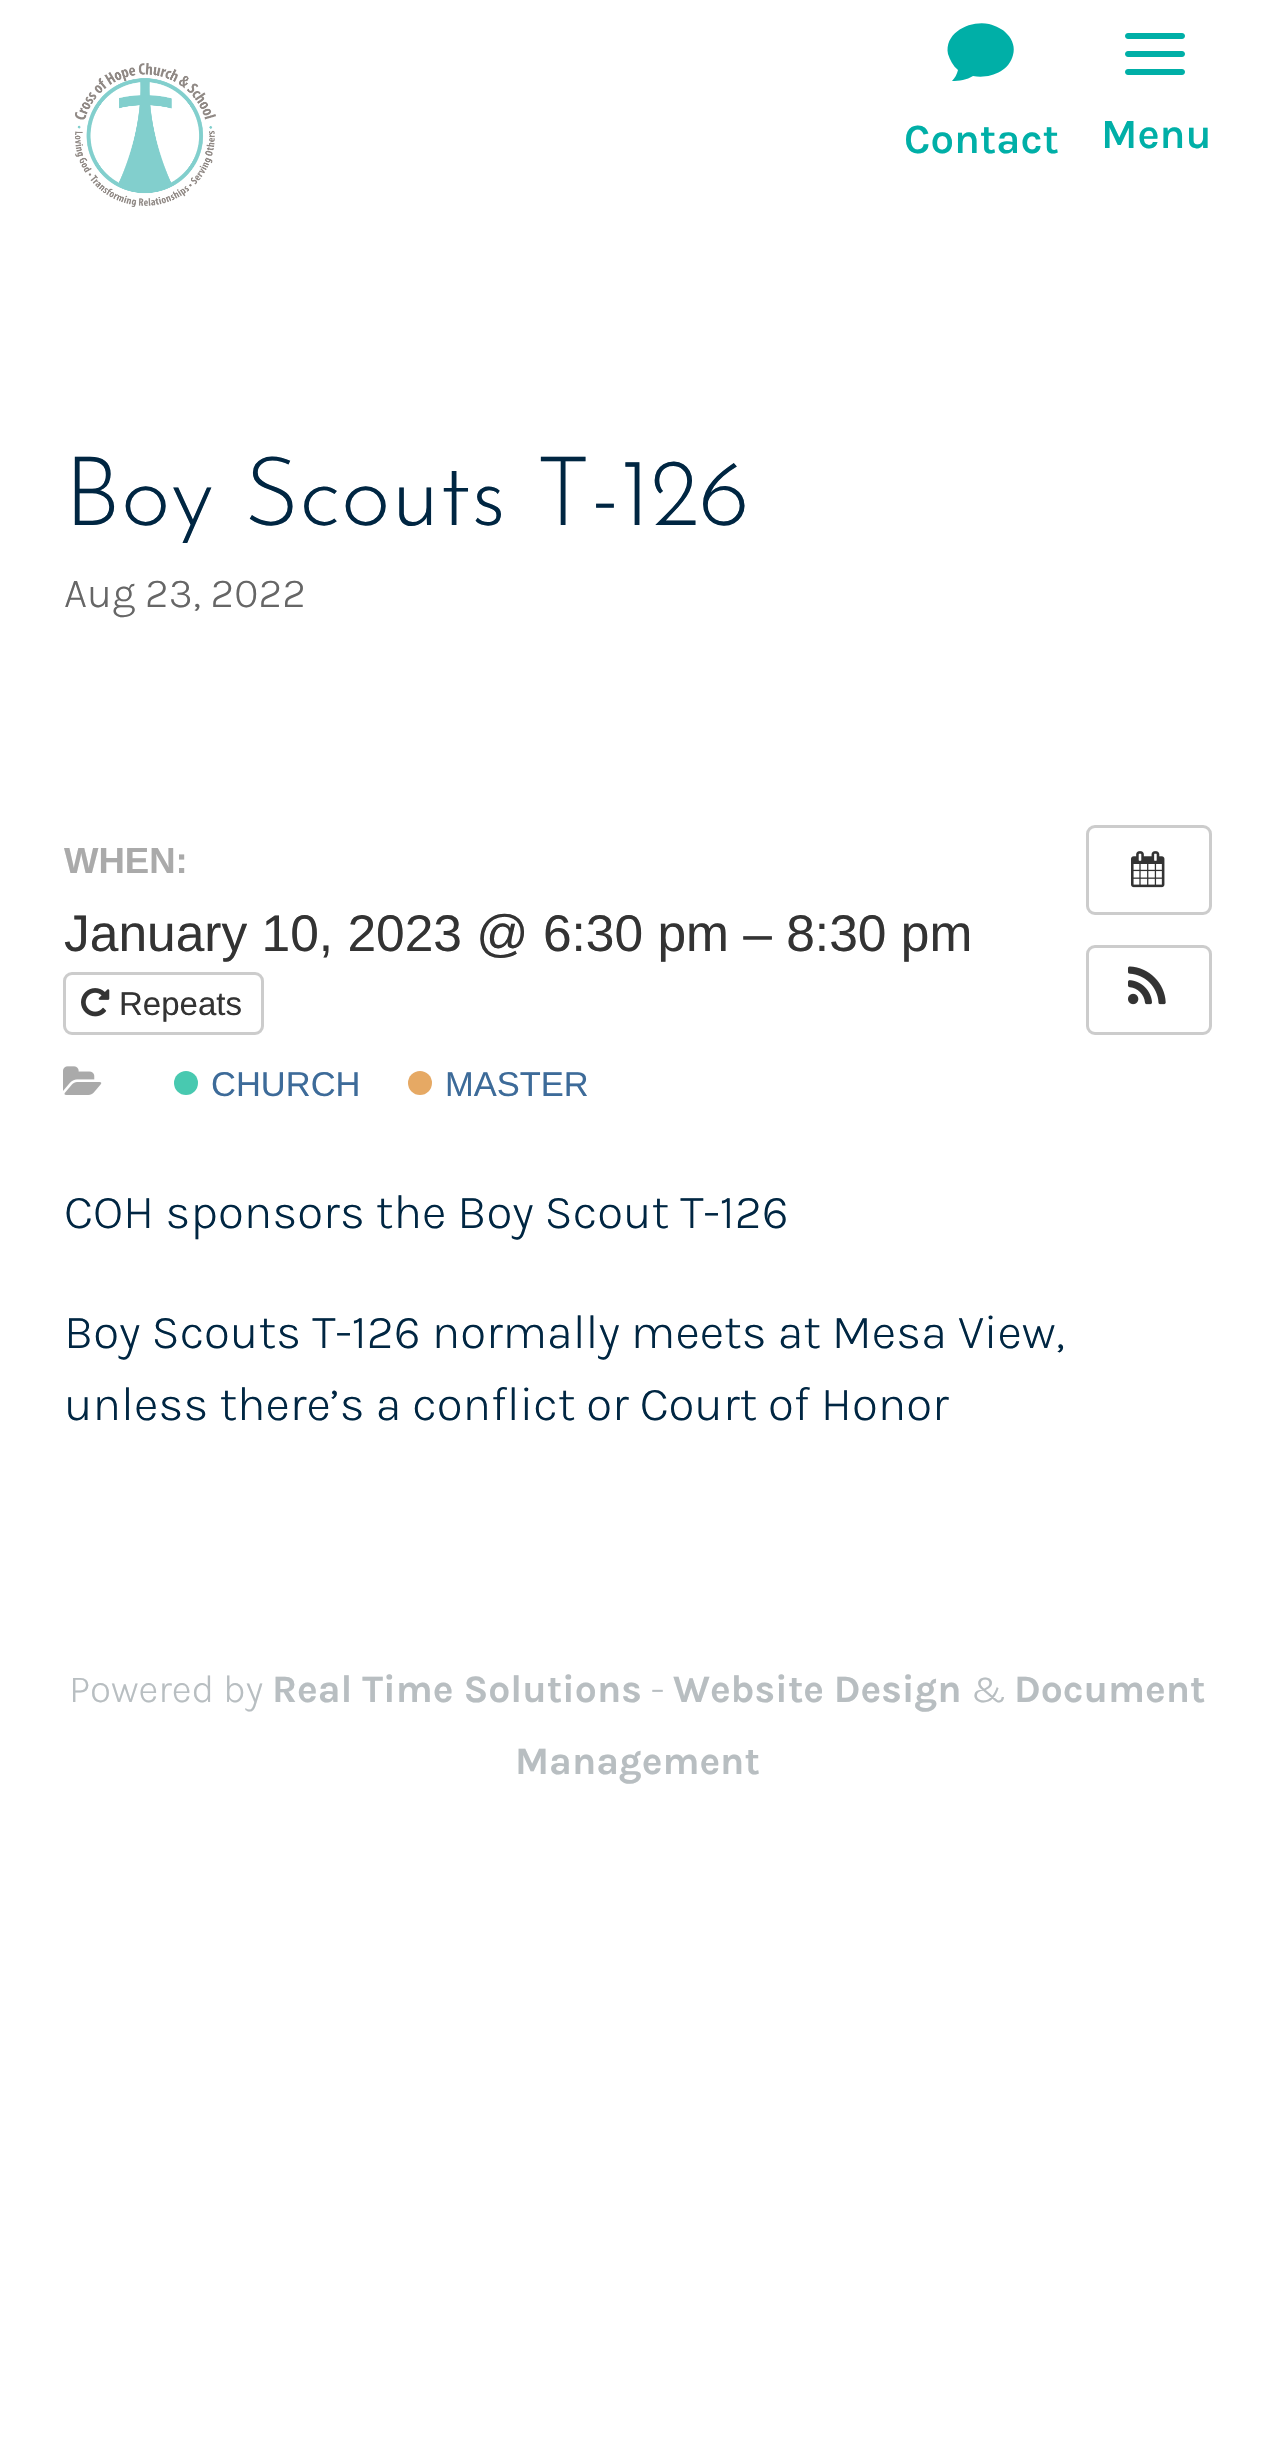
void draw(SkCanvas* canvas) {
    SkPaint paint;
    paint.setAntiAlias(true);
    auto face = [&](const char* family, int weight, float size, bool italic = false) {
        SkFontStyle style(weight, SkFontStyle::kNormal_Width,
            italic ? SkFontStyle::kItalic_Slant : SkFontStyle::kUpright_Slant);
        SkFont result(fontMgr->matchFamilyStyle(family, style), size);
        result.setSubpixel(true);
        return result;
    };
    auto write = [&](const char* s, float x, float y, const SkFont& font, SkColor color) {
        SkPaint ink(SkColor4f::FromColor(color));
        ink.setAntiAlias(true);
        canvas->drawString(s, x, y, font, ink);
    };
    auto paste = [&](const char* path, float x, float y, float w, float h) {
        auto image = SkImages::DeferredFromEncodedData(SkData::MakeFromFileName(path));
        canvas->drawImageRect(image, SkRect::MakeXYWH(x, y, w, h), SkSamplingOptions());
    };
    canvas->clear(SK_ColorWHITE);
    paste("pic1.png", 75, 63, 141, 144);
    paint.setColor(SkColorSetRGB(0, 175, 167));
    canvas->drawPath(SkPathBuilder().moveTo(958, 70).cubicTo(957, 74, 955, 78, 952, 81).cubicTo(959, 81, 967, 80, 973, 76).cubicTo(989, 79, 1009, 72, 1013, 55).cubicTo(1015, 48, 1013, 40, 1007, 34).cubicTo(1003, 29, 996, 26, 989, 24).cubicTo(971, 20, 944, 32, 948, 54).cubicTo(950, 60, 953, 66, 958, 70).close().detach(), paint);
    auto kFont1 = face("Karla", 600, 42);
    write("Contact", 904, 153, kFont1, SkColorSetRGB(0, 175, 167));
    paste("pic2.png", 1125, 33, 60, 42);
    write("Menu", 1101, 148, kFont1, SkColorSetRGB(0, 175, 167));
    auto kFont2 = face("Josefin Sans", 100, 96);
    write("Boy Scouts T-126", 64, 525, kFont2, SkColorSetRGB(0, 38, 66));
    auto kFont3 = face("Karla", 300, 42);
    write("Aug 23, 2022", 64, 607, kFont3, SkColorSetRGB(102, 102, 102));
    auto kFont4 = face("Liberation Sans", 700, 36.5f);
    write("WHEN:", 64, 873, kFont4, SkColorSetRGB(170, 170, 170));
    auto kFont5 = face("Liberation Sans", 400, 51.5f);
    write("January 10, 2023 @ 6:30 pm – 8:30 pm", 64, 951, kFont5, SkColorSetRGB(51, 51, 51));
    paint.setStyle(SkPaint::kStroke_Style);
    paint.setStrokeWidth(3);
    paint.setColor(SkColorSetRGB(204, 204, 204));
    canvas->drawRoundRect(SkRect::MakeXYWH(64.5f, 973.5f, 198, 60), 7.5f, 7.5f, paint);
    paste("pic3.png", 81, 988, 29, 29);
    auto kFont6 = face("Liberation Sans", 400, 33);
    write("Repeats", 119, 1015, kFont6, SkColorSetRGB(51, 51, 51));
    paste("pic4.png", 63, 1066, 39, 29);
    paint.setStyle(SkPaint::kFill_Style);
    paint.setColor(SkColorSetRGB(72, 201, 176));
    canvas->drawCircle(186, 1083, 12, paint);
    auto kFont7 = face("Liberation Sans", 400, 34.5f);
    write("CHURCH", 211, 1096, kFont7, SkColorSetRGB(61, 107, 153));
    paint.setColor(SkColorSetRGB(230, 169, 100));
    canvas->drawCircle(420, 1083, 12, paint);
    write("MASTER", 445, 1096, kFont7, SkColorSetRGB(61, 107, 153));
    paint.setStyle(SkPaint::kStroke_Style);
    paint.setColor(SkColorSetRGB(204, 204, 204));
    canvas->drawRoundRect(SkRect::MakeXYWH(1087.5f, 826.5f, 123, 87), 7.5f, 7.5f, paint);
    paste("pic5.png", 1131, 851, 34, 37);
    canvas->drawRoundRect(SkRect::MakeXYWH(1087.5f, 946.5f, 123, 87), 7.5f, 7.5f, paint);
    paste("pic6.png", 1128, 966, 38, 39);
    auto kFont8 = face("Karla", 300, 48);
    write("COH sponsors the Boy Scout T-126", 64, 1228, kFont8, SkColorSetRGB(0, 38, 66));
    write("Boy Scouts T-126 normally meets at Mesa View,", 64, 1348, kFont8, SkColorSetRGB(0, 38, 66));
    write("unless there’s a conflict or Court of Honor", 64, 1420, kFont8, SkColorSetRGB(0, 38, 66));
    auto kFont9 = face("Karla", 300, 39);
    write("Powered by", 69, 1702, kFont9, SkColorSetRGB(184, 190, 193));
    auto kFont10 = face("Karla", 700, 39);
    write("Real Time Solutions", 272, 1702, kFont10, SkColorSetRGB(184, 190, 193));
    write("-", 651, 1702, kFont9, SkColorSetRGB(184, 190, 193));
    write("Website Design", 673, 1702, kFont10, SkColorSetRGB(184, 190, 193));
    write("&", 971, 1702, kFont9, SkColorSetRGB(184, 190, 193));
    write("Document", 1014, 1702, kFont10, SkColorSetRGB(184, 190, 193));
    write("Management", 515, 1774, kFont10, SkColorSetRGB(184, 190, 193));
}
